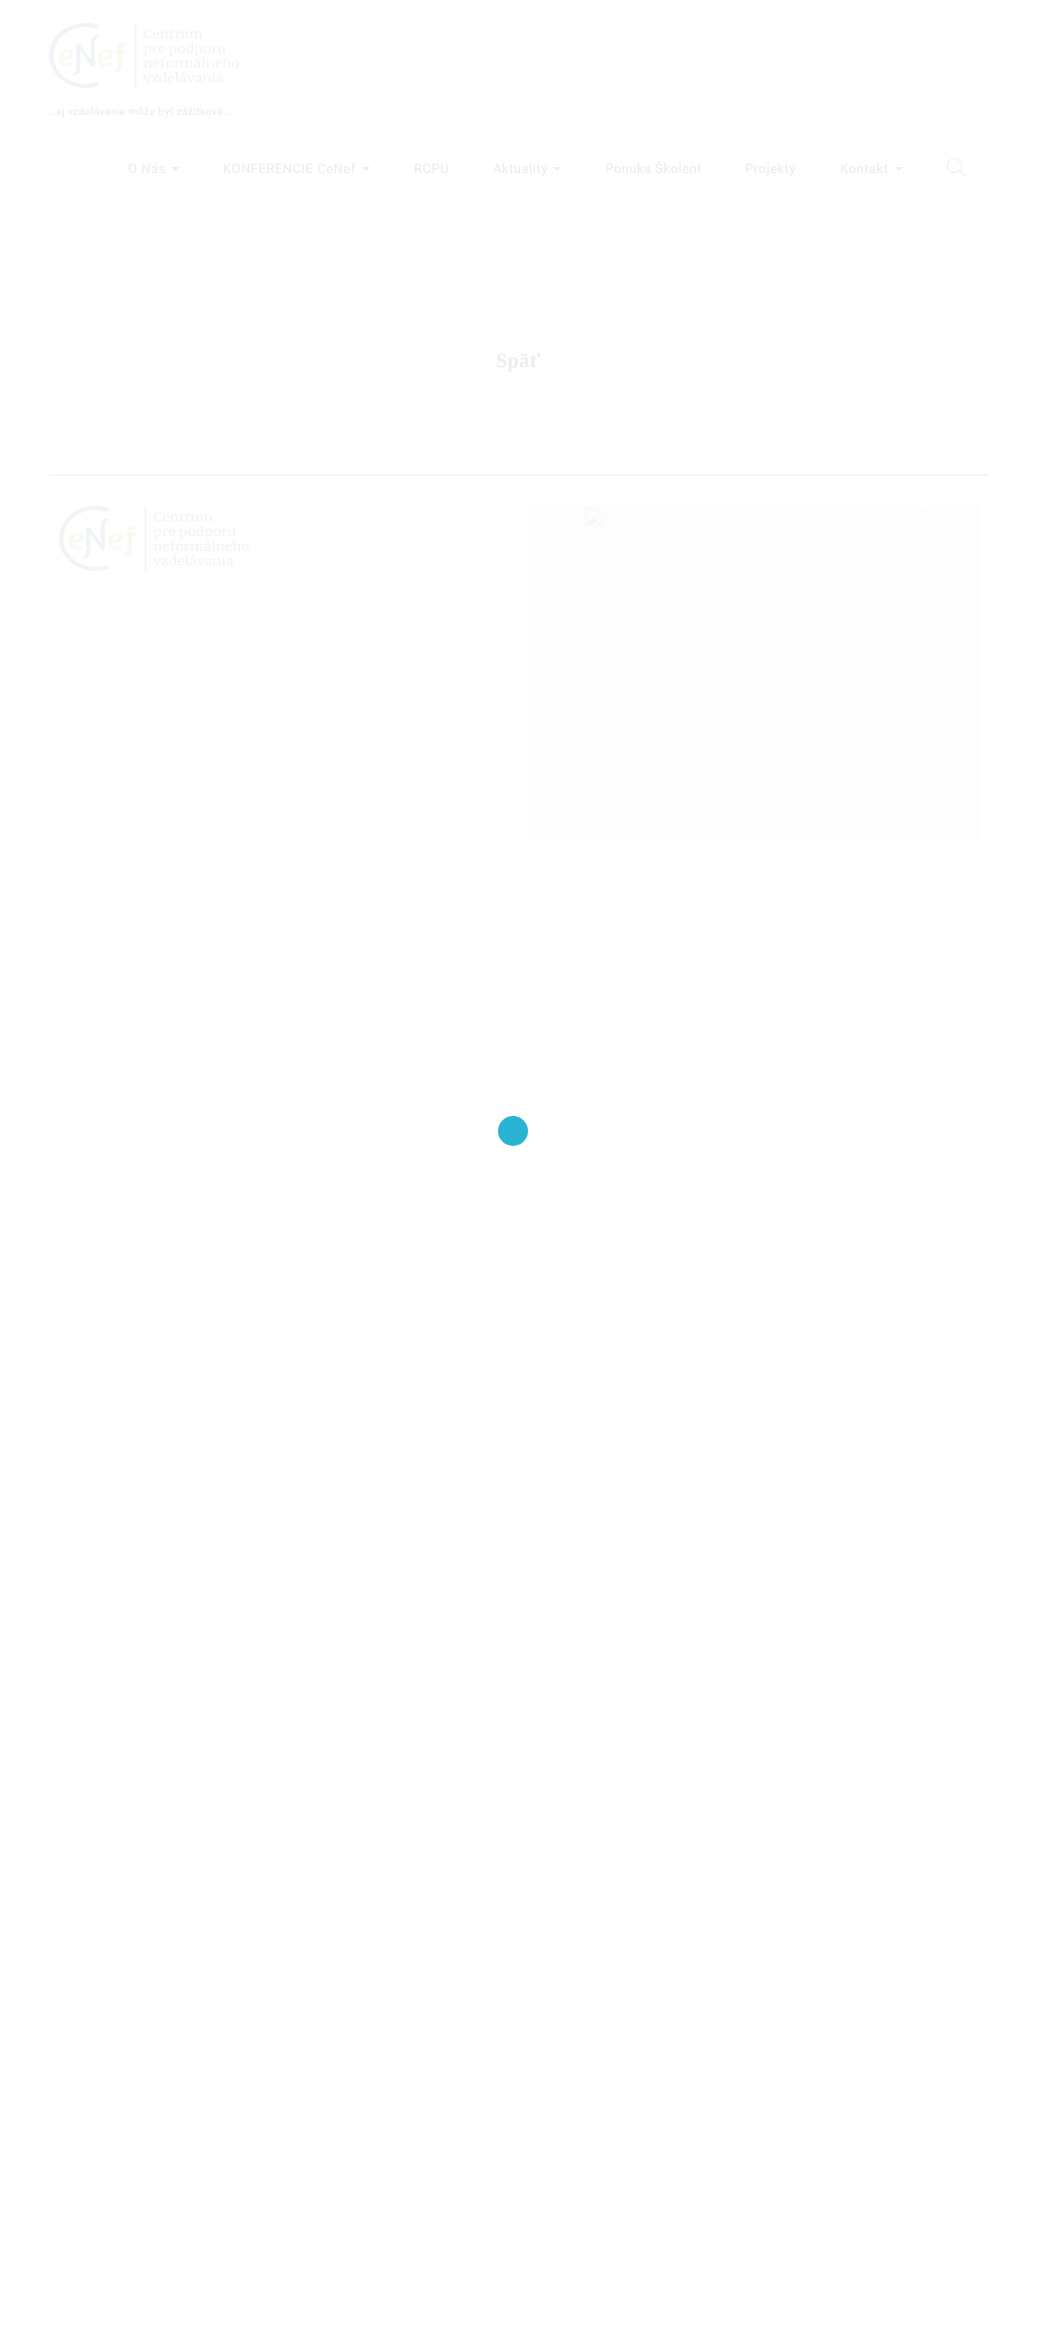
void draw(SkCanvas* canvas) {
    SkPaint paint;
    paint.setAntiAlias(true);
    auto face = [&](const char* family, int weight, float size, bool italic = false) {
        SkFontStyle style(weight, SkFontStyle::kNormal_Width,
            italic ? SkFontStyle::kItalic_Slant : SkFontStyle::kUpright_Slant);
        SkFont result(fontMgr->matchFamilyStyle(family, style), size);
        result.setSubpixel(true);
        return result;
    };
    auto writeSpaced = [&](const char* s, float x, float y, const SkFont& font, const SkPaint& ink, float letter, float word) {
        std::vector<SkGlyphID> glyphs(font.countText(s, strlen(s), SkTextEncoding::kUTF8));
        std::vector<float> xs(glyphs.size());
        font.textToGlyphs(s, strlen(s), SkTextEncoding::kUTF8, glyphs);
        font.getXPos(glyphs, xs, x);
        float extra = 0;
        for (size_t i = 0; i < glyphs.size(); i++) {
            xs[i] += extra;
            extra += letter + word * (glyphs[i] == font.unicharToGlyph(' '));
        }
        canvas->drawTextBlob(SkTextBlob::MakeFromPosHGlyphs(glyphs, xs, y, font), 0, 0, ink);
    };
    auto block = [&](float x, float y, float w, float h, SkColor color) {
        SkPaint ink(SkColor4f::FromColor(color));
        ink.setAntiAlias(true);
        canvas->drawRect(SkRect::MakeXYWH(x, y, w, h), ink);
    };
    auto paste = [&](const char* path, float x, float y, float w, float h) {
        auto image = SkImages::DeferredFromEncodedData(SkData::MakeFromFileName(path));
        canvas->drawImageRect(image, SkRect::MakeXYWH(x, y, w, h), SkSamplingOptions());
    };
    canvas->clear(SK_ColorWHITE);
    paste("pic1.png", 49, 23, 190, 65);
    auto kFont1 = face("Roboto", 400, 10);
    paint.setColor(SkColorSetRGB(237, 237, 237));
    writeSpaced("…aj vzdelávanie môže byť zážitkové…", 49, 115, kFont1, paint, 0.5f, 0);
    auto kFont2 = face("Roboto", 400, 13);
    writeSpaced("O Nás", 128, 173, kFont2, paint, 0.5f, 0);
    canvas->drawPath(SkPathBuilder().moveTo(171, 167).lineTo(179, 167).lineTo(175, 171).close().detach(), paint);
    writeSpaced("KONFERENCIE CeNef", 223, 173, kFont2, paint, 0.5f, 0);
    canvas->drawPath(SkPathBuilder().moveTo(362, 167).lineTo(370, 167).lineTo(366, 171).close().detach(), paint);
    writeSpaced("RCPU", 414, 173, kFont2, paint, 0.5f, 0);
    writeSpaced("Aktuality", 493, 173, kFont2, paint, 0.5f, 0);
    canvas->drawPath(SkPathBuilder().moveTo(553, 167).lineTo(561, 167).lineTo(557, 171).close().detach(), paint);
    writeSpaced("Ponuka Školení", 605, 173, kFont2, paint, 0.5f, 0);
    writeSpaced("Projekty", 745, 173, kFont2, paint, 0.5f, 0);
    writeSpaced("Kontakt", 840, 173, kFont2, paint, 0.5f, 0);
    canvas->drawPath(SkPathBuilder().moveTo(895, 167).lineTo(903, 167).lineTo(899, 171).close().detach(), paint);
    paint.setStyle(SkPaint::kStroke_Style);
    paint.setStrokeWidth(1);
    canvas->drawCircle(954.5f, 165.5f, 7, paint);
    paint.setStyle(SkPaint::kFill_Style);
    canvas->drawPath(SkPathBuilder().moveTo(958.5f, 170).lineTo(959.5f, 169.5f).lineTo(966.5f, 176.5f).lineTo(965.5f, 177).close().detach(), paint);
    auto kFont3 = face("Liberation Serif", 700, 20);
    writeSpaced("Späť", 496, 367, kFont3, paint, 0.5f, 0);
    block(49, 474, 940, 2, SkColorSetRGB(246, 246, 246));
    paste("pic1.png", 59, 506, 190, 65);
    paste("pic2.png", 529, 506, 450, 333);
    paint.setColor(SkColorSetRGB(42, 180, 211));
    canvas->drawCircle(513, 1131, 15, paint);
}
